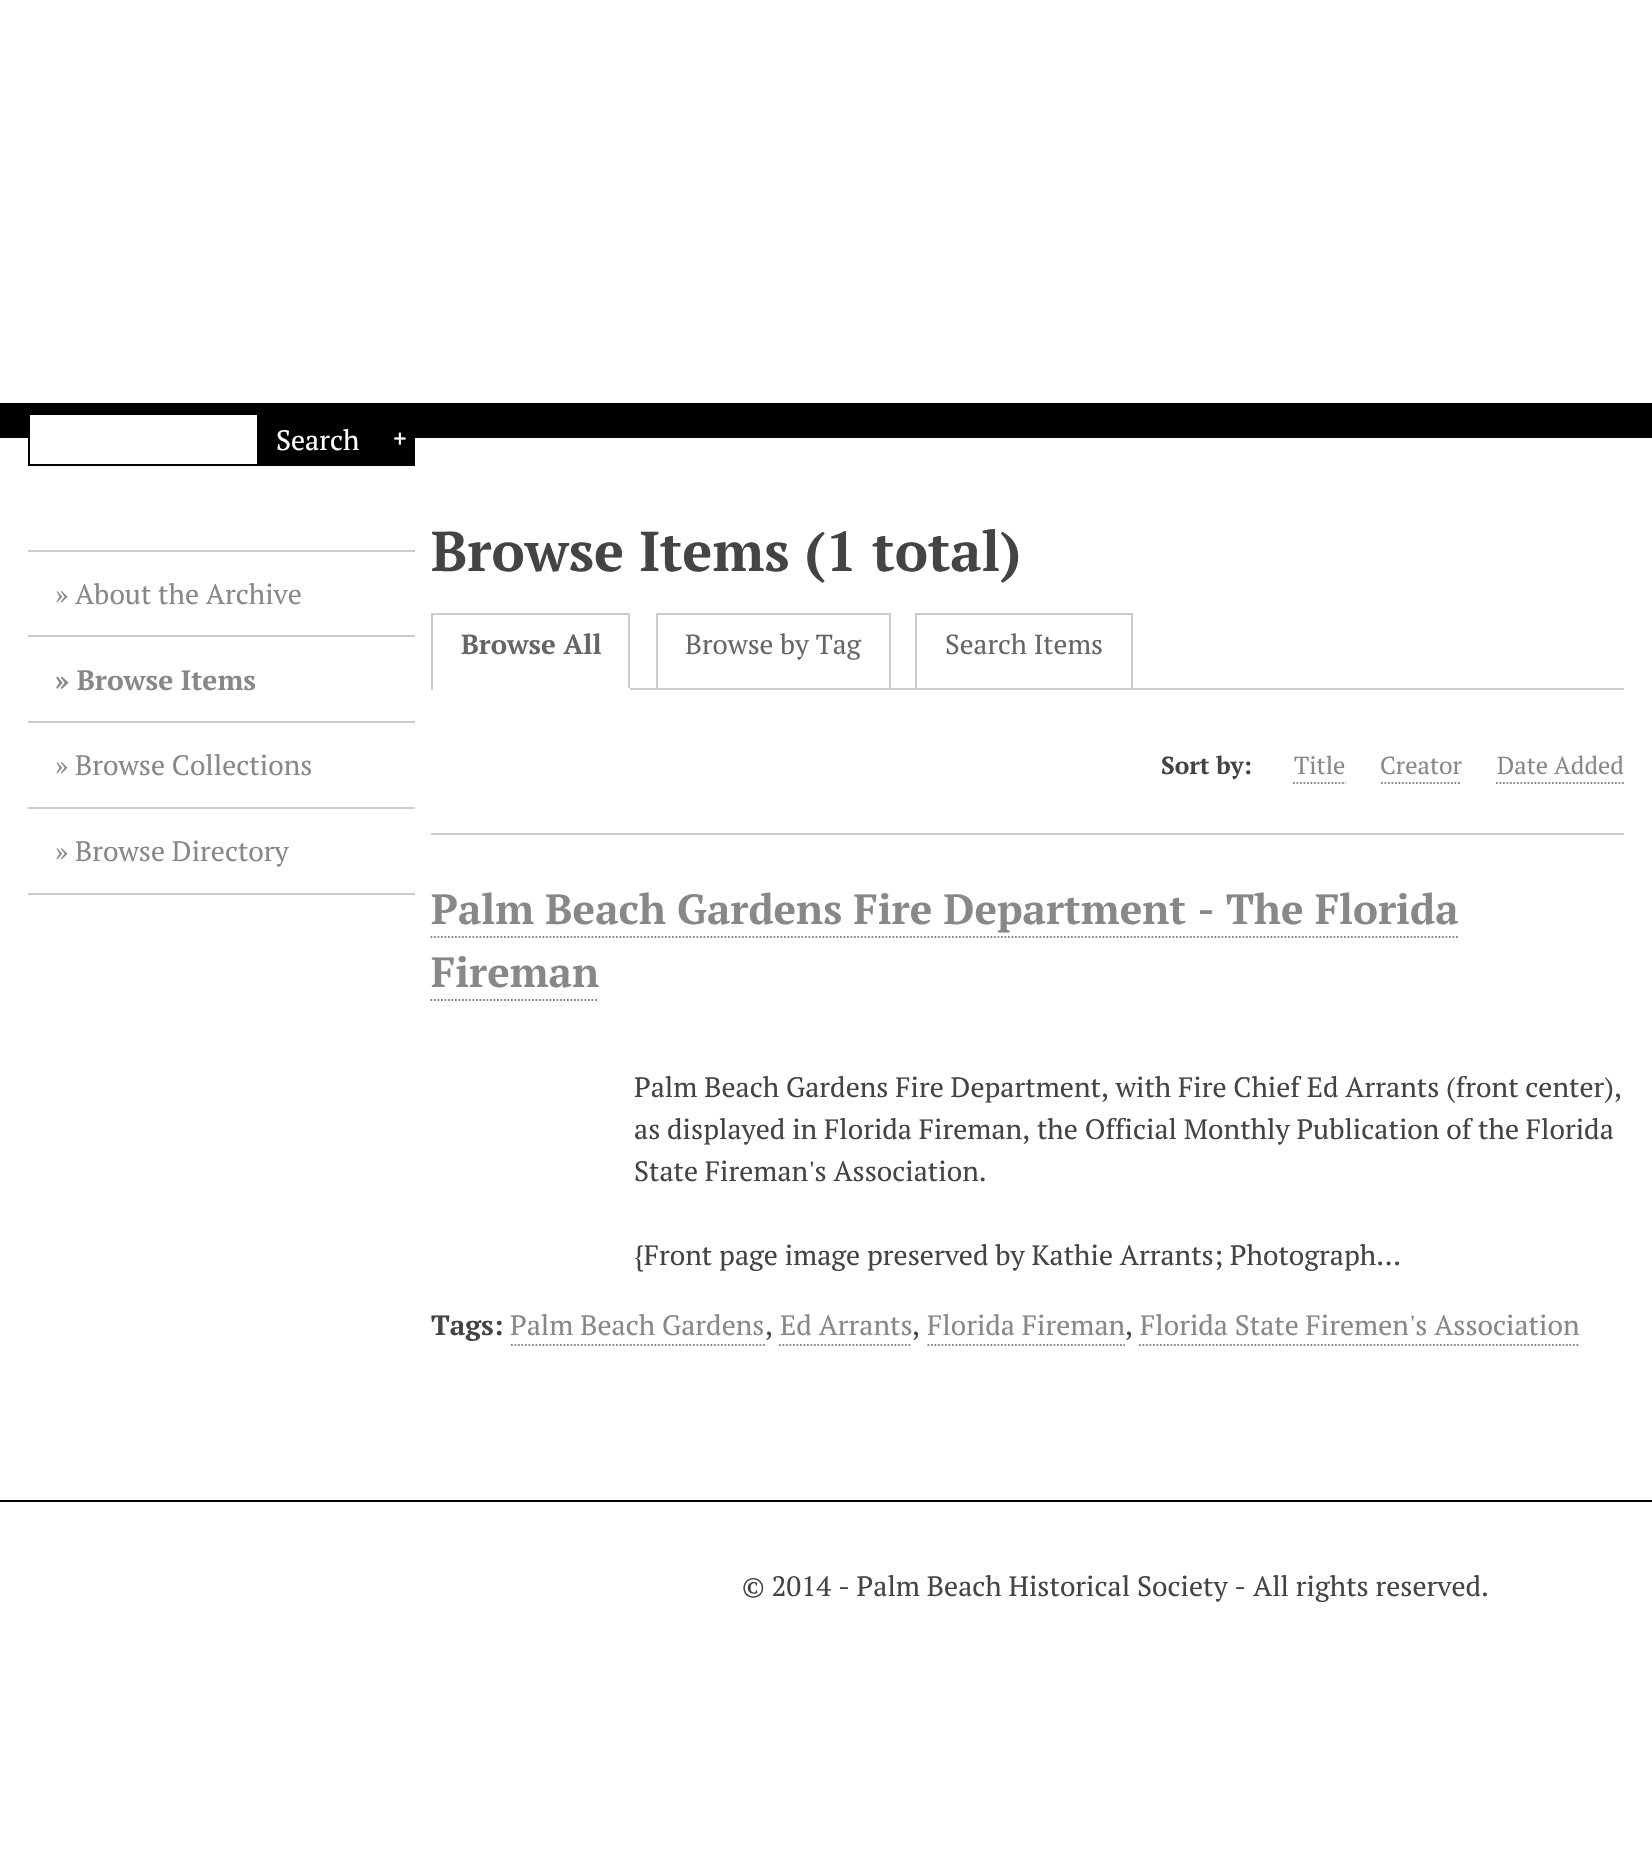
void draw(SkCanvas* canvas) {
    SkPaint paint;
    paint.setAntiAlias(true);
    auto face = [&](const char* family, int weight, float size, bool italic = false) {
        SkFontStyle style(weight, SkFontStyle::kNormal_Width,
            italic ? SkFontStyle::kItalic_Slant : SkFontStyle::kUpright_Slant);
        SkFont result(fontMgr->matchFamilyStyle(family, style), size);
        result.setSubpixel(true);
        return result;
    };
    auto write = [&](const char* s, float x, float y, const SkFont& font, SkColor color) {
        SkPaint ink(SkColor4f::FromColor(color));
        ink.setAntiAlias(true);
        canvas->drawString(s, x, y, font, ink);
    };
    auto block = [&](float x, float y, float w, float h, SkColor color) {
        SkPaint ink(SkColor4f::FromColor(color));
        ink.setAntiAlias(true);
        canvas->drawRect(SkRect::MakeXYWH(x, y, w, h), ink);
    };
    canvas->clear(SK_ColorWHITE);
    block(0, 403, 1652, 35, SK_ColorBLACK);
    block(30, 415, 227, 23, SK_ColorWHITE);
    paint.setStyle(SkPaint::kStroke_Style);
    paint.setStrokeWidth(2);
    paint.setColor(SK_ColorBLACK);
    canvas->drawRect(SkRect::MakeXYWH(29, 414, 229, 51), paint);
    block(259, 438, 156, 28, SK_ColorBLACK);
    auto kFont1 = face("PT Serif", 400, 28);
    write("Search", 276, 450, kFont1, SK_ColorWHITE);
    auto kFont2 = face("PT Serif", 700, 24.5f);
    write("+", 393, 447, kFont2, SK_ColorWHITE);
    block(28, 550, 387, 2, SkColorSetRGB(204, 204, 204));
    block(28, 635, 387, 2, SkColorSetRGB(204, 204, 204));
    write("» About the Archive", 55, 604, kFont1, SkColorSetRGB(136, 136, 136));
    block(28, 721, 387, 2, SkColorSetRGB(204, 204, 204));
    auto kFont3 = face("PT Serif", 700, 28);
    write("» Browse Items", 55, 690, kFont3, SkColorSetRGB(136, 136, 136));
    block(28, 807, 387, 2, SkColorSetRGB(204, 204, 204));
    write("» Browse Collections", 55, 775, kFont1, SkColorSetRGB(136, 136, 136));
    block(28, 893, 387, 2, SkColorSetRGB(204, 204, 204));
    write("» Browse Directory", 55, 861, kFont1, SkColorSetRGB(136, 136, 136));
    auto kFont4 = face("PT Serif", 700, 56);
    write("Browse Items (1 total)", 431, 571, kFont4, SkColorSetRGB(68, 68, 68));
    block(630, 688, 994, 2, SkColorSetRGB(204, 204, 204));
    block(431, 613, 199, 2, SkColorSetRGB(204, 204, 204));
    block(628, 613, 2, 77, SkColorSetRGB(204, 204, 204));
    block(628, 688, 2, 2, SK_ColorWHITE);
    block(431, 613, 2, 77, SkColorSetRGB(204, 204, 204));
    auto kFont5 = face("PT Serif", 700, 27.5f);
    write("Browse All", 461, 654, kFont5, SkColorSetRGB(102, 102, 102));
    paint.setColor(SkColorSetRGB(204, 204, 204));
    canvas->drawRect(SkRect::MakeXYWH(657, 614, 233, 75), paint);
    auto kFont6 = face("PT Serif", 400, 27.5f);
    write("Browse by Tag", 685, 654, kFont6, SkColorSetRGB(102, 102, 102));
    block(915, 613, 217, 2, SkColorSetRGB(204, 204, 204));
    block(1131, 613, 2, 75, SkColorSetRGB(204, 204, 204));
    block(915, 613, 2, 75, SkColorSetRGB(204, 204, 204));
    write("Search Items", 945, 654, kFont6, SkColorSetRGB(102, 102, 102));
    write("Sort by:", 1161, 774, kFont2, SkColorSetRGB(68, 68, 68));
    auto kFont7 = face("PT Serif", 400, 24.5f);
    write("Title", 1294, 774, kFont7, SkColorSetRGB(136, 136, 136));
    paint.setStrokeWidth(1.8f);
    paint.setColor(SkColorSetRGB(136, 136, 136));
    paint.setPathEffect(SkDashPathEffect::Make({{1.75f, 1.75f}}, 0));
    canvas->drawPath(SkPathBuilder().moveTo(1293, 783).lineTo(1346, 783).detach(), paint);
    paint.setPathEffect(nullptr);
    write("Creator", 1380, 774, kFont7, SkColorSetRGB(136, 136, 136));
    paint.setPathEffect(SkDashPathEffect::Make({{1.75f, 1.75f}}, 0));
    canvas->drawPath(SkPathBuilder().moveTo(1381, 783).lineTo(1461, 783).detach(), paint);
    paint.setPathEffect(nullptr);
    write("Date Added", 1497, 774, kFont7, SkColorSetRGB(136, 136, 136));
    paint.setPathEffect(SkDashPathEffect::Make({{1.75f, 1.75f}}, 0));
    canvas->drawPath(SkPathBuilder().moveTo(1496, 783).lineTo(1624, 783).detach(), paint);
    paint.setPathEffect(nullptr);
    block(431, 833, 1193, 2, SkColorSetRGB(204, 204, 204));
    auto kFont8 = face("PT Serif", 700, 42);
    write("Palm Beach Gardens Fire Department - The Florida", 431, 924, kFont8, SkColorSetRGB(136, 136, 136));
    paint.setPathEffect(SkDashPathEffect::Make({{1.75f, 1.75f}}, 0));
    canvas->drawPath(SkPathBuilder().moveTo(430.5f, 937).lineTo(1459.5f, 937).detach(), paint);
    paint.setPathEffect(nullptr);
    write("Fireman", 431, 987, kFont8, SkColorSetRGB(136, 136, 136));
    paint.setPathEffect(SkDashPathEffect::Make({{1.75f, 1.75f}}, 0));
    canvas->drawPath(SkPathBuilder().moveTo(430.5f, 1000).lineTo(598.5f, 1000).detach(), paint);
    paint.setPathEffect(nullptr);
    write("Palm Beach Gardens Fire Department, with Fire Chief Ed Arrants (front center),", 634, 1097, kFont1, SkColorSetRGB(68, 68, 68));
    write("as displayed in Florida Fireman, the Official Monthly Publication of the Florida", 634, 1139, kFont1, SkColorSetRGB(68, 68, 68));
    write("State Fireman's Association.", 634, 1181, kFont1, SkColorSetRGB(68, 68, 68));
    write("{Front page image preserved by Kathie Arrants; Photograph…", 634, 1265, kFont1, SkColorSetRGB(68, 68, 68));
    write("Tags:", 431, 1335, kFont3, SkColorSetRGB(68, 68, 68));
    write("Palm Beach Gardens", 510, 1335, kFont1, SkColorSetRGB(136, 136, 136));
    paint.setPathEffect(SkDashPathEffect::Make({{1.75f, 1.75f}}, 0));
    canvas->drawPath(SkPathBuilder().moveTo(511, 1345).lineTo(765, 1345).detach(), paint);
    paint.setPathEffect(nullptr);
    write(",", 765, 1335, kFont1, SkColorSetRGB(68, 68, 68));
    write("Ed Arrants", 780, 1335, kFont1, SkColorSetRGB(136, 136, 136));
    paint.setPathEffect(SkDashPathEffect::Make({{1.75f, 1.75f}}, 0));
    canvas->drawPath(SkPathBuilder().moveTo(779, 1345).lineTo(912, 1345).detach(), paint);
    paint.setPathEffect(nullptr);
    write(",", 912, 1335, kFont1, SkColorSetRGB(68, 68, 68));
    write("Florida Fireman", 927, 1335, kFont1, SkColorSetRGB(136, 136, 136));
    paint.setPathEffect(SkDashPathEffect::Make({{1.75f, 1.75f}}, 0));
    canvas->drawPath(SkPathBuilder().moveTo(927.5f, 1345).lineTo(1125, 1345).detach(), paint);
    paint.setPathEffect(nullptr);
    write(",", 1125, 1335, kFont1, SkColorSetRGB(68, 68, 68));
    write("Florida State Firemen's Association", 1140, 1335, kFont1, SkColorSetRGB(136, 136, 136));
    paint.setPathEffect(SkDashPathEffect::Make({{1.75f, 1.75f}}, 0));
    canvas->drawPath(SkPathBuilder().moveTo(1139, 1345).lineTo(1580, 1345).detach(), paint);
    paint.setPathEffect(nullptr);
    block(0, 1500, 1652, 2, SK_ColorBLACK);
    write("© 2014 - Palm Beach Historical Society - All rights reserved.", 742, 1596, kFont1, SkColorSetRGB(68, 68, 68));
}
